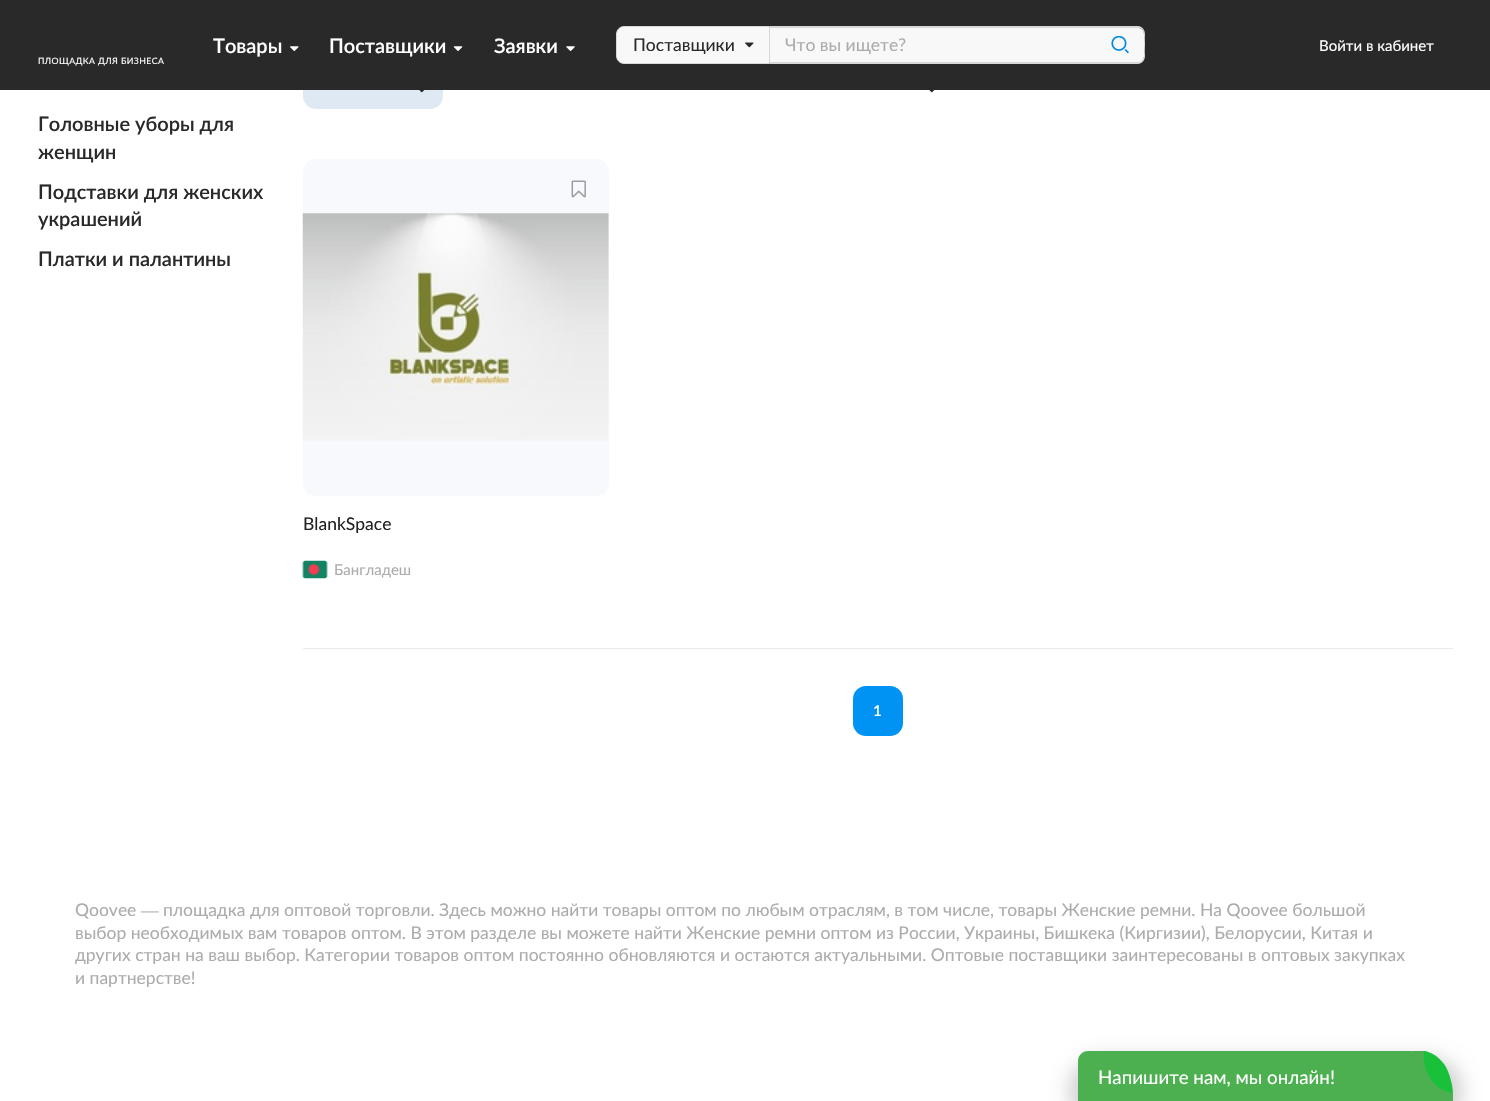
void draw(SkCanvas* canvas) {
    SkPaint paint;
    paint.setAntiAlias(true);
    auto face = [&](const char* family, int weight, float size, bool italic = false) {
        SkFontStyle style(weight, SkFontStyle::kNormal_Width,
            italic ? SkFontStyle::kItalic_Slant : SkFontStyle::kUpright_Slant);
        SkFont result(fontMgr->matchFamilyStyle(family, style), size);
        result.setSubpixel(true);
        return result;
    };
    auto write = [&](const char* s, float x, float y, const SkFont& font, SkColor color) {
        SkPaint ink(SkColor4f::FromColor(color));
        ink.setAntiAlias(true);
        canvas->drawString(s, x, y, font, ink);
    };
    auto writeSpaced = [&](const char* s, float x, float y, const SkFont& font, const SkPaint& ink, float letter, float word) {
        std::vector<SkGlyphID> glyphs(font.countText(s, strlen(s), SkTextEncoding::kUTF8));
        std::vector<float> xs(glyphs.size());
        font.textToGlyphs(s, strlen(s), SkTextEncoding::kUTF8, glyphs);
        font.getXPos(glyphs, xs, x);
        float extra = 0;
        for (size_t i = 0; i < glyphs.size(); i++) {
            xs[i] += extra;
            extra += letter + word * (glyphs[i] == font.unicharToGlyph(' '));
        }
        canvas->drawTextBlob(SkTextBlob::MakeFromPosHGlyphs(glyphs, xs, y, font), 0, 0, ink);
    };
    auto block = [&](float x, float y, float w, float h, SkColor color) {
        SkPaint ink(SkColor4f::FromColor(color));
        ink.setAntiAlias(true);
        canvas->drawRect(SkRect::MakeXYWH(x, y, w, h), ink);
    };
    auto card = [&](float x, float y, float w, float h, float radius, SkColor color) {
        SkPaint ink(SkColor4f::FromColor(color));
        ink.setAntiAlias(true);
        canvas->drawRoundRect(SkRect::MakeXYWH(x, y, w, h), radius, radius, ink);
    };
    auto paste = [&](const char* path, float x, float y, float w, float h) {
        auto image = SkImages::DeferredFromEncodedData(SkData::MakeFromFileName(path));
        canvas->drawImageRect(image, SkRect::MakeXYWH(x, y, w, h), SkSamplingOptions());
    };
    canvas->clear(SK_ColorWHITE);
    card(303, 70, 140, 39, 13, SkColorSetRGB(223, 233, 243));
    block(0, 0, 1490, 90, SkColorSetRGB(41, 41, 41));
    auto kFont1 = face("Lato", 600, 20);
    write("Товары", 213, 53, kFont1, SK_ColorWHITE);
    paste("pic1.png", 290, 46, 9, 5);
    write("Поставщики", 329, 53, kFont1, SK_ColorWHITE);
    paste("pic2.png", 453, 46, 10, 5);
    write("Заявки", 494, 53, kFont1, SK_ColorWHITE);
    paste("pic3.png", 566, 46, 9, 5);
    paint.setColor(SkColorSetRGB(248, 248, 248));
    canvas->drawPath(SkPathBuilder().moveTo(624, 26.5f).lineTo(769.5f, 26.5f).lineTo(769.5f, 63.5f).lineTo(624, 63.5f).cubicTo(620, 63.5f, 616.5f, 60, 616.5f, 56).lineTo(616.5f, 34).cubicTo(616.5f, 30, 620, 26.5f, 624, 26.5f).close().detach(), paint);
    paint.setStyle(SkPaint::kStroke_Style);
    paint.setStrokeWidth(1);
    paint.setColor(SkColorSetRGB(216, 216, 216));
    canvas->drawPath(SkPathBuilder().moveTo(624, 26.5f).lineTo(769.5f, 26.5f).lineTo(769.5f, 63.5f).lineTo(624, 63.5f).cubicTo(620, 63.5f, 616.5f, 60, 616.5f, 56).lineTo(616.5f, 34).cubicTo(616.5f, 30, 620, 26.5f, 624, 26.5f).close().detach(), paint);
    auto kFont2 = face("Lato", 400, 17.5f);
    write("Поставщики", 633, 51, kFont2, SkColorSetRGB(41, 41, 41));
    paste("pic4.png", 745, 42, 9, 6);
    paint.setStyle(SkPaint::kFill_Style);
    paint.setColor(SkColorSetRGB(248, 248, 248));
    canvas->drawPath(SkPathBuilder().moveTo(770, 28).lineTo(1138, 28).cubicTo(1141.5f, 28, 1144, 30.5f, 1144, 34).lineTo(1144, 57).cubicTo(1144, 60.5f, 1141.5f, 63, 1138, 63).lineTo(770, 63).close().detach(), paint);
    paint.setColor(SkColorSetRGB(216, 216, 216));
    canvas->drawPath(SkPathBuilder(SkPathFillType::kEvenOdd).moveTo(770, 26).lineTo(1138, 26).cubicTo(1142, 26, 1145, 30, 1145, 34).lineTo(1145, 56).cubicTo(1145, 60, 1142, 64, 1138, 64).lineTo(770, 64).close().moveTo(770, 28).lineTo(1138, 28).cubicTo(1146, 28, 1144, 40, 1144, 45).cubicTo(1144, 50, 1146, 62, 1138, 62).lineTo(770, 62).close().detach(), paint);
    write("Что вы ищете?", 785, 51, kFont2, SkColorSetRGB(172, 172, 172));
    paste("pic5.png", 1111, 36, 18, 18);
    auto kFont3 = face("Lato", 400, 8.75f);
    paint.setColor(SK_ColorWHITE);
    writeSpaced("ПЛОЩАДКА ДЛЯ БИЗНЕСА", 38, 64, kFont3, paint, 0.4f, 0);
    auto kFont4 = face("Lato", 400, 15);
    write("Войти в кабинет", 1319, 51, kFont4, SK_ColorWHITE);
    write("Головные уборы для", 38, 131, kFont1, SkColorSetRGB(41, 41, 41));
    write("женщин", 38, 159, kFont1, SkColorSetRGB(41, 41, 41));
    write("Подставки для женских", 38, 199, kFont1, SkColorSetRGB(41, 41, 41));
    write("украшений", 38, 226, kFont1, SkColorSetRGB(41, 41, 41));
    write("Платки и палантины", 38, 266, kFont1, SkColorSetRGB(41, 41, 41));
    paste("pic6.png", 419, 90, 6, 3);
    paste("pic7.png", 929, 90, 6, 3);
    block(303, 648, 1150, 1, SkColorSetRGB(234, 234, 234));
    card(303, 159, 306, 337, 13, SkColorSetRGB(247, 249, 252));
    paste("pic8.png", 302, 213, 307, 228);
    paste("pic9.png", 571, 180, 15, 18);
    write("BlankSpace", 303, 530, kFont2, SkColorSetRGB(33, 33, 33));
    paste("pic10.png", 302, 560, 26, 19);
    write("Бангладеш", 334, 575, kFont4, SkColorSetRGB(172, 172, 172));
    card(853, 686, 50, 50, 13, SkColorSetRGB(0, 147, 243));
    auto kFont5 = face("Lato", 600, 15);
    write("1", 873, 716, kFont5, SK_ColorWHITE);
    write("Qoovee", 75, 916, kFont2, SkColorSetRGB(172, 172, 172));
    auto kFont6 = face("Liberation Serif", 400, 17.5f);
    write("—", 141, 916, kFont6, SkColorSetRGB(172, 172, 172));
    write("площадка для оптовой торговли. Здесь можно найти товары оптом по любым отраслям, в том числе, товары Женские ремни. На Qoovee большой", 163, 916, kFont2, SkColorSetRGB(172, 172, 172));
    write("выбор необходимых вам товаров оптом. В этом разделе вы можете найти Женские ремни оптом из России, Украины, Бишкека (Киргизии), Белорусии, Китая и", 75, 939, kFont2, SkColorSetRGB(172, 172, 172));
    write("других стран на ваш выбор. Категории товаров оптом постоянно обновляются и остаются актуальными. Оптовые поставщики заинтересованы в оптовых закупках", 75, 961, kFont2, SkColorSetRGB(172, 172, 172));
    write("и партнерстве!", 75, 984, kFont2, SkColorSetRGB(172, 172, 172));
    paint.setColor(SkColorSetARGB(43, 0, 0, 0));
    paint.setMaskFilter(SkMaskFilter::MakeBlur(kNormal_SkBlurStyle, 9));
    canvas->drawRoundRect(SkRect::MakeXYWH(1068, 1056, 395, 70), 53, 53, paint);
    paint.setMaskFilter(nullptr);
    paint.setColor(SkColorSetRGB(76, 175, 80));
    canvas->drawPath(SkPathBuilder().moveTo(1088, 1051).lineTo(1410, 1051).cubicTo(1433.5f, 1051, 1453, 1070.5f, 1453, 1094).lineTo(1453, 1101).lineTo(1078, 1101).lineTo(1078, 1061).cubicTo(1078, 1055.5f, 1082.5f, 1051, 1088, 1051).close().detach(), paint);
    auto kFont7 = face("Lato", 400, 18.75f);
    write("Напишите нам, мы онлайн!", 1098, 1084, kFont7, SK_ColorWHITE);
    canvas->save();
    canvas->clipRect(SkRect::MakeXYWH(1413, 1051, 40, 43));
    canvas->drawPath(SkPathBuilder(SkPathFillType::kEvenOdd).moveTo(1412, 1051).lineTo(1424, 1051).lineTo(1452, 1093).lineTo(1452, 1101).lineTo(1412, 1101).close().detach(), paint);
    canvas->restore();
    paint.setColor(SkColorSetRGB(24, 193, 57));
    canvas->drawPath(SkPathBuilder(SkPathFillType::kEvenOdd).moveTo(1424, 1051).cubicTo(1428, 1051, 1452, 1058, 1452, 1093).cubicTo(1436, 1090, 1424, 1075, 1424, 1058).close().detach(), paint);
}
